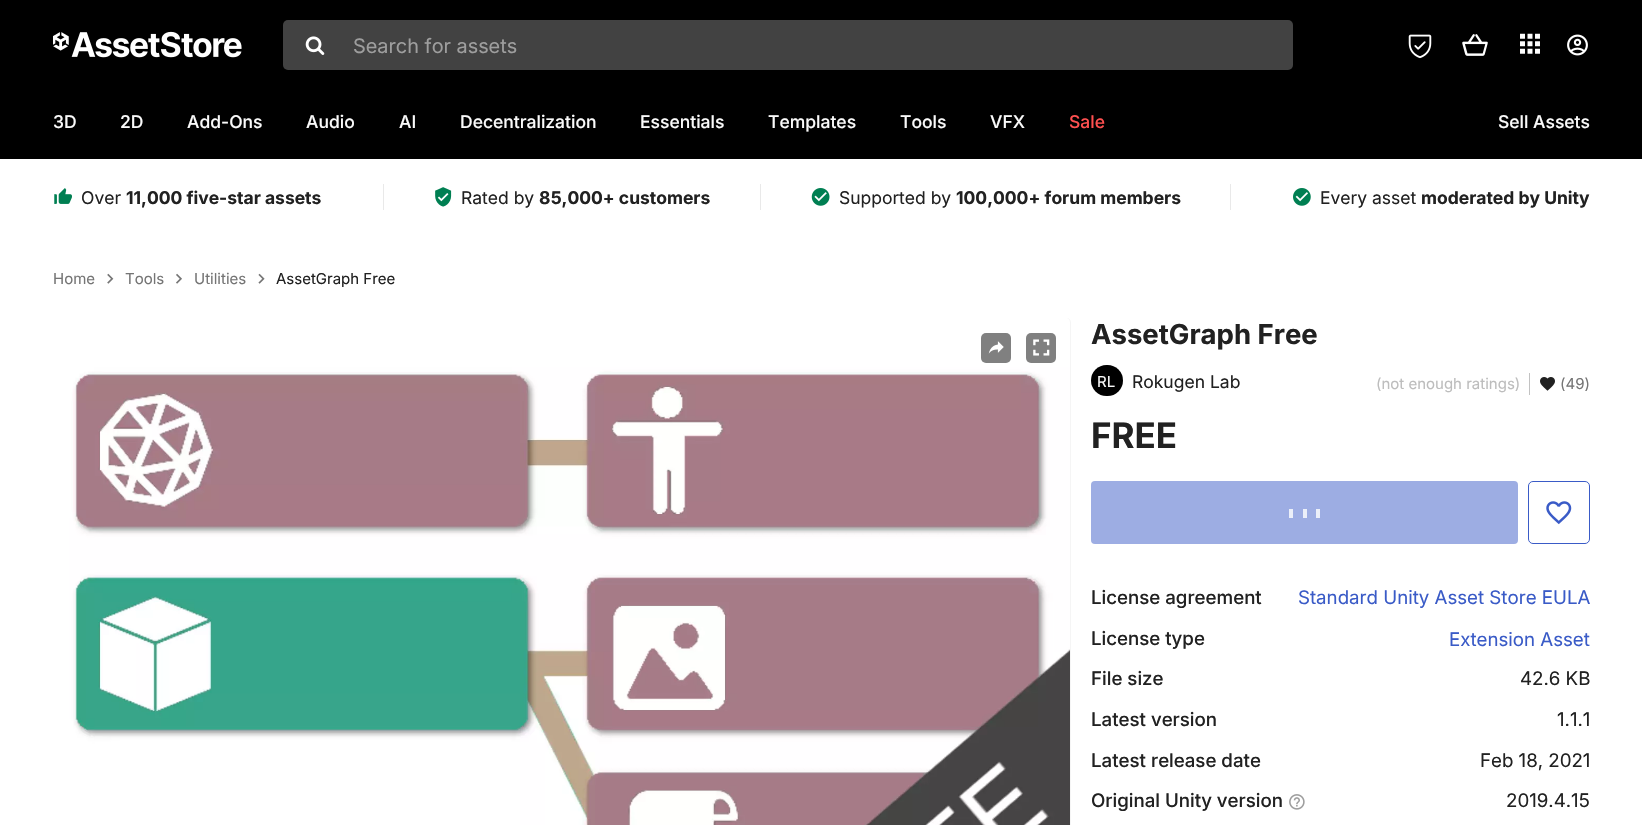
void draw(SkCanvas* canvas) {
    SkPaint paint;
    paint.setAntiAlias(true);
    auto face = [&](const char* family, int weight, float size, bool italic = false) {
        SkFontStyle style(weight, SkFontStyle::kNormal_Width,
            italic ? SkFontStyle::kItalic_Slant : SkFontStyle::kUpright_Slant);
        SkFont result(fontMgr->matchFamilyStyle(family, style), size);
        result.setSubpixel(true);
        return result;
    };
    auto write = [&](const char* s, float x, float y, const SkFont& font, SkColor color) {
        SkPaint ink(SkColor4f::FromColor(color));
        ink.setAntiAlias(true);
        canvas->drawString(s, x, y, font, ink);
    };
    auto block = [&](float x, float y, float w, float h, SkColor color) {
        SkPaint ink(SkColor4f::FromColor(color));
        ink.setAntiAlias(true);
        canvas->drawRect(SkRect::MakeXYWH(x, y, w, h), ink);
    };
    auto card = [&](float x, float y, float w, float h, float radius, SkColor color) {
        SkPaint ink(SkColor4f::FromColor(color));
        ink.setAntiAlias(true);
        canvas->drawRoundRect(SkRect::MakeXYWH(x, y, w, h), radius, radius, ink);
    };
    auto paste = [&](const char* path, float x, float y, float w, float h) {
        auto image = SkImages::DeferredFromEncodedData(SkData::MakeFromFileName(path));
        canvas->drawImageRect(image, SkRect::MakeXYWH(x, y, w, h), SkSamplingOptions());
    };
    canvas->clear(SK_ColorWHITE);
    block(0, 0, 1642, 159, SK_ColorBLACK);
    paste("pic1.png", 53, 31, 189, 27);
    card(283, 20, 1010, 50, 5, SkColorSetRGB(66, 66, 66));
    paste("pic2.png", 305, 36, 20, 19);
    auto kFont1 = face("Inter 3", 400, 20);
    write("Search for assets", 353, 53, kFont1, SkColorSetRGB(158, 158, 158));
    paste("pic3.png", 1408, 34, 24, 25);
    paste("pic4.png", 1462, 34, 26, 22);
    paste("pic5.png", 1520, 33, 20, 21);
    paste("pic6.png", 1567, 34, 21, 22);
    auto kFont2 = face("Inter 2", 500, 17.5f);
    write("3D", 53, 128, kFont2, SkColorSetRGB(250, 250, 250));
    write("2D", 120, 128, kFont2, SkColorSetRGB(250, 250, 250));
    write("Add-Ons", 187, 128, kFont2, SkColorSetRGB(250, 250, 250));
    write("Audio", 306, 128, kFont2, SkColorSetRGB(250, 250, 250));
    write("AI", 399, 128, kFont2, SkColorSetRGB(250, 250, 250));
    write("Decentralization", 460, 128, kFont2, SkColorSetRGB(250, 250, 250));
    write("Essentials", 640, 128, kFont2, SkColorSetRGB(250, 250, 250));
    write("Templates", 768, 128, kFont2, SkColorSetRGB(250, 250, 250));
    write("Tools", 900, 128, kFont2, SkColorSetRGB(250, 250, 250));
    write("VFX", 990, 128, kFont2, SkColorSetRGB(250, 250, 250));
    write("Sale", 1069, 128, kFont2, SkColorSetRGB(255, 80, 80));
    write("Sell Assets", 1498, 128, kFont2, SkColorSetRGB(250, 250, 250));
    paste("pic7.png", 54, 188, 18, 16);
    auto kFont3 = face("Inter", 400, 17.5f);
    write("Over", 81, 204, kFont3, SkColorSetRGB(33, 33, 33));
    auto kFont4 = face("Inter", 700, 17.5f);
    write("11,000 five-star assets", 126, 204, kFont4, SkColorSetRGB(33, 33, 33));
    block(760, 184, 1, 26, SkColorSetRGB(233, 233, 233));
    block(383, 184, 1, 26, SkColorSetRGB(233, 233, 233));
    paste("pic8.png", 435, 187, 17, 20);
    write("Rated by", 461, 204, kFont3, SkColorSetRGB(33, 33, 33));
    write("85,000+ customers", 539, 204, kFont4, SkColorSetRGB(33, 33, 33));
    block(1230, 184, 1, 26, SkColorSetRGB(233, 233, 233));
    paste("pic9.png", 811, 188, 19, 18);
    write("Supported by", 839, 204, kFont3, SkColorSetRGB(33, 33, 33));
    write("100,000+ forum members", 956, 204, kFont4, SkColorSetRGB(33, 33, 33));
    paste("pic10.png", 1293, 188, 18, 18);
    write("Every asset", 1320, 204, kFont3, SkColorSetRGB(33, 33, 33));
    write("moderated by Unity", 1421, 204, kFont4, SkColorSetRGB(33, 33, 33));
    auto kFont5 = face("Inter", 400, 15);
    write("Home", 53, 284, kFont5, SkColorSetRGB(117, 117, 117));
    paste("pic11.png", 107, 273, 7, 11);
    write("Tools", 125, 284, kFont5, SkColorSetRGB(117, 117, 117));
    paste("pic12.png", 176, 273, 6, 11);
    write("Utilities", 194, 284, kFont5, SkColorSetRGB(117, 117, 117));
    paste("pic13.png", 258, 273, 7, 11);
    write("AssetGraph Free", 276, 284, kFont5, SkColorSetRGB(33, 33, 33));
    paint.setColor(SkColorSetRGB(245, 245, 245));
    canvas->drawPath(SkPathBuilder().moveTo(58, 318).lineTo(1066, 318).cubicTo(1069, 318, 1071, 320, 1071, 323).lineTo(1071, 825).lineTo(53, 825).lineTo(53, 323).cubicTo(53, 320, 55, 318, 58, 318).close().detach(), paint);
    paste("pic14.png", 53, 318, 1017, 507);
    card(981, 333, 30, 30, 5, SkColorSetRGB(128, 128, 128));
    paste("pic15.png", 988, 341, 16, 13);
    card(1026, 333, 30, 30, 5, SkColorSetRGB(128, 128, 128));
    paste("pic16.png", 1033, 339, 17, 17);
    auto kFont6 = face("Inter", 700, 27.5f);
    write("AssetGraph Free", 1091, 344, kFont6, SkColorSetRGB(33, 33, 33));
    card(1091, 365, 32, 31, 15.5f, SK_ColorBLACK);
    write("RL", 1097, 387, kFont5, SkColorSetRGB(250, 250, 250));
    write("Rokugen Lab", 1132, 388, kFont3, SkColorSetRGB(33, 33, 33));
    write("(not enough ratings)", 1376, 389, kFont5, SkColorSetRGB(189, 189, 189));
    block(1529, 373, 1, 22, SkColorSetRGB(194, 194, 194));
    paste("pic17.png", 1540, 377, 15, 14);
    write("(49)", 1560, 389, kFont5, SkColorSetRGB(117, 117, 117));
    auto kFont7 = face("Inter", 700, 35);
    write("FREE", 1091, 448, kFont7, SkColorSetRGB(33, 33, 33));
    card(1091, 481, 427, 63, 4, SkColorSetRGB(157, 173, 227));
    block(1289, 509, 4, 9, SkColorSetRGB(235, 239, 249));
    block(1303, 509, 4, 9, SkColorSetRGB(235, 239, 249));
    block(1316, 509, 4, 9, SkColorSetRGB(235, 239, 249));
    paint.setStyle(SkPaint::kStroke_Style);
    paint.setStrokeWidth(1);
    paint.setColor(SkColorSetRGB(58, 91, 199));
    canvas->drawRoundRect(SkRect::MakeXYWH(1528.5f, 481.5f, 61, 62), 4.5f, 4.5f, paint);
    paste("pic18.png", 1546, 501, 26, 24);
    auto kFont8 = face("Inter", 500, 18.75f);
    write("License agreement", 1091, 604, kFont8, SkColorSetRGB(33, 33, 33));
    auto kFont9 = face("Inter 2", 400, 18.75f);
    write("Standard Unity Asset Store EULA", 1298, 604, kFont9, SkColorSetRGB(58, 91, 199));
    write("License type", 1091, 645, kFont8, SkColorSetRGB(33, 33, 33));
    write("Extension Asset", 1449, 646, kFont9, SkColorSetRGB(58, 91, 199));
    write("File size", 1091, 685, kFont8, SkColorSetRGB(33, 33, 33));
    write("42.6 KB", 1520, 685, kFont9, SkColorSetRGB(33, 33, 33));
    write("Latest version", 1091, 726, kFont8, SkColorSetRGB(33, 33, 33));
    write("1.1.1", 1557, 726, kFont9, SkColorSetRGB(33, 33, 33));
    write("Latest release date", 1091, 767, kFont8, SkColorSetRGB(33, 33, 33));
    write("Feb 18, 2021", 1480, 767, kFont9, SkColorSetRGB(33, 33, 33));
    write("Original Unity version", 1091, 807, kFont8, SkColorSetRGB(33, 33, 33));
    paste("pic19.png", 1289, 794, 16, 16);
    write("2019.4.15", 1506, 807, kFont9, SkColorSetRGB(33, 33, 33));
}
